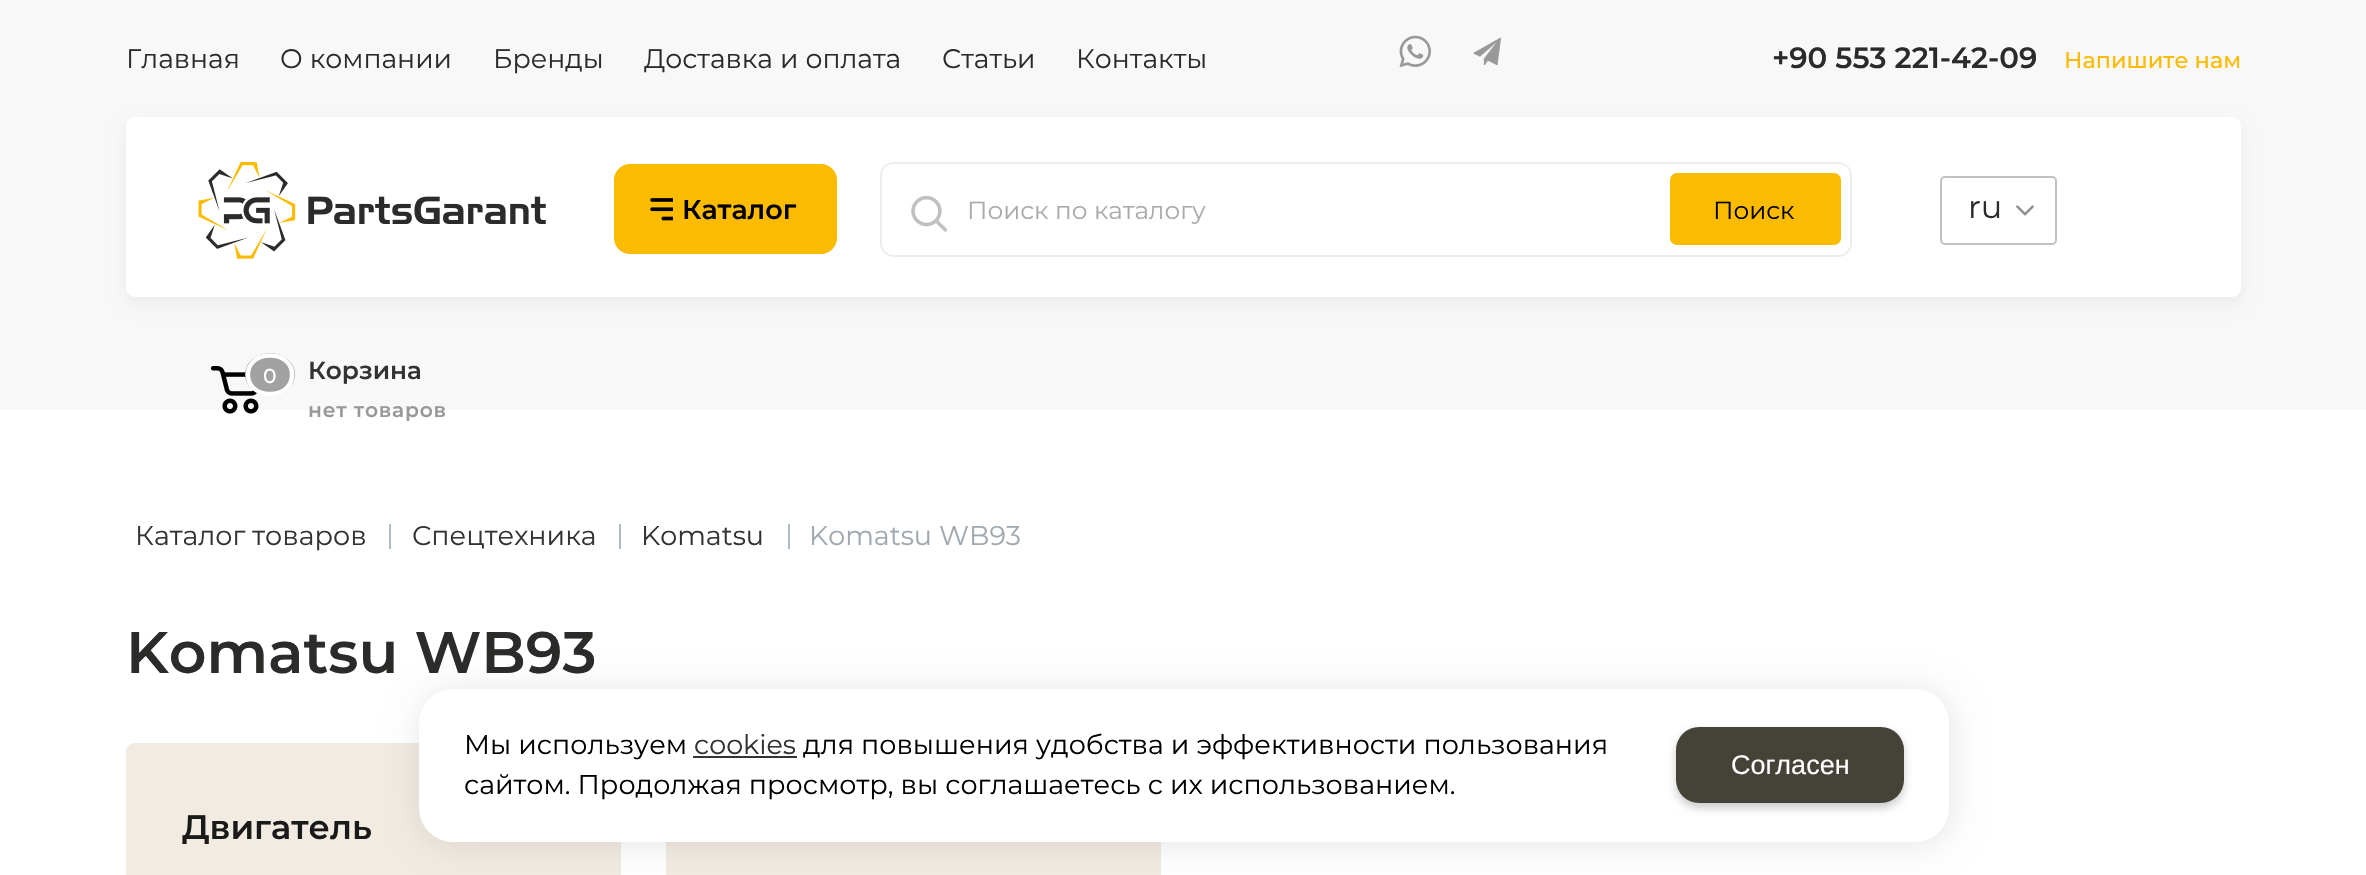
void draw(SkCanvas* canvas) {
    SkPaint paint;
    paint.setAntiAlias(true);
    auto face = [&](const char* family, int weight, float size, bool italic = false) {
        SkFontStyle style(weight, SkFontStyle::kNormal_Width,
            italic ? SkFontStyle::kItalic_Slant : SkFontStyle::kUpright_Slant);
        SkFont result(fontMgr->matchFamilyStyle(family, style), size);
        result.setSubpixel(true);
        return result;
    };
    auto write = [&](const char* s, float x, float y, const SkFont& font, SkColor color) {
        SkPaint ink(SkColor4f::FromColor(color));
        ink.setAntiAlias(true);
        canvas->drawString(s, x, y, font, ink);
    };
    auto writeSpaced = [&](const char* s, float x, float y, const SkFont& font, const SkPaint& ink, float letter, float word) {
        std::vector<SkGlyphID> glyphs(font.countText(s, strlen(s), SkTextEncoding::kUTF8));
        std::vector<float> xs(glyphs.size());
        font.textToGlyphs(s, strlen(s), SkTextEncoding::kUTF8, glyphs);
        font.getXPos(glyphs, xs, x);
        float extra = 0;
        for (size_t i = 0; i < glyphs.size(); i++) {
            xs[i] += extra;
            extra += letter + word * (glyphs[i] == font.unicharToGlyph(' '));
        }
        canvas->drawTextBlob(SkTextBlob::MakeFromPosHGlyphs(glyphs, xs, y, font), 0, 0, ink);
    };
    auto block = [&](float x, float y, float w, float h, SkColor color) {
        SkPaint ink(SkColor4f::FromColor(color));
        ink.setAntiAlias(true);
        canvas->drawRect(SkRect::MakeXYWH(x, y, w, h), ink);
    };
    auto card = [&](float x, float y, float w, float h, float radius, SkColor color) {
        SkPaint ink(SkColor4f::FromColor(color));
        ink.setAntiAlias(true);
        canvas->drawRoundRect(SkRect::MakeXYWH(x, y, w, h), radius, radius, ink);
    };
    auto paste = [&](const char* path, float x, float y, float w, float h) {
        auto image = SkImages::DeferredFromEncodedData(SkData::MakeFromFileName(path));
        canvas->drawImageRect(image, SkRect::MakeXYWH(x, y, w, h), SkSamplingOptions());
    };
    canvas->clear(SK_ColorWHITE);
    block(0, 0, 2366, 410, SkColorSetRGB(248, 248, 248));
    auto kFont1 = face("Montserrat", 400, 26.75f);
    write("Главная", 126, 68, kFont1, SkColorSetRGB(43, 43, 42));
    write("О компании", 280, 68, kFont1, SkColorSetRGB(43, 43, 42));
    write("Бренды", 493, 68, kFont1, SkColorSetRGB(43, 43, 42));
    write("Доставка и оплата", 644, 68, kFont1, SkColorSetRGB(43, 43, 42));
    write("Статьи", 942, 68, kFont1, SkColorSetRGB(43, 43, 42));
    write("Контакты", 1076, 68, kFont1, SkColorSetRGB(43, 43, 42));
    paste("pic1.png", 1399, 35, 32, 33);
    paste("pic2.png", 1473, 37, 28, 29);
    auto kFont2 = face("Montserrat", 600, 29.25f);
    write("+90 553 221-42-09", 1772, 68, kFont2, SkColorSetRGB(43, 43, 42));
    auto kFont3 = face("Montserrat", 500, 22.5f);
    write("Напишите нам", 2064, 68, kFont3, SkColorSetRGB(251, 187, 0));
    paint.setColor(SkColorSetARGB(13, 0, 0, 0));
    paint.setMaskFilter(SkMaskFilter::MakeBlur(kNormal_SkBlurStyle, 8));
    canvas->drawRoundRect(SkRect::MakeXYWH(126, 124, 2115, 180), 9, 9, paint);
    paint.setMaskFilter(nullptr);
    card(126, 117, 2115, 180, 9, SK_ColorWHITE);
    paste("pic3.png", 198, 162, 348, 97);
    card(614, 164, 223, 90, 16, SkColorSetRGB(251, 187, 0));
    paste("pic4.png", 650, 198, 23, 23);
    auto kFont4 = face("Montserrat", 600, 27);
    write("Каталог", 682, 219, kFont4, SK_ColorBLACK);
    paint.setStyle(SkPaint::kStroke_Style);
    paint.setStrokeWidth(2);
    paint.setColor(SkColorSetRGB(237, 237, 237));
    canvas->drawRoundRect(SkRect::MakeXYWH(881, 163, 970, 93), 13, 13, paint);
    card(882, 164, 968, 90, 11, SK_ColorWHITE);
    paste("pic5.png", 911, 195, 36, 37);
    auto kFont5 = face("Montserrat", 400, 24.75f);
    write("Поиск по каталогу", 967, 219, kFont5, SkColorSetRGB(170, 170, 170));
    card(1670, 173, 171, 72, 7, SkColorSetRGB(251, 187, 0));
    write("Поиск", 1713, 219, kFont5, SK_ColorBLACK);
    paint.setColor(SkColorSetRGB(193, 193, 193));
    canvas->drawRoundRect(SkRect::MakeXYWH(1941, 177, 115, 67), 4, 4, paint);
    auto kFont6 = face("Montserrat", 400, 32);
    write("ru", 1968, 218, kFont6, SkColorSetRGB(43, 43, 42));
    paste("pic6.png", 2016, 205, 18, 11);
    paste("pic7.png", 210, 366, 49, 48);
    paint.setStyle(SkPaint::kFill_Style);
    paint.setColor(SkColorSetRGB(162, 162, 162));
    canvas->drawOval(SkRect::MakeXYWH(245, 353, 50, 43), paint);
    paint.setStyle(SkPaint::kStroke_Style);
    paint.setStrokeWidth(4.5f);
    paint.setColor(SK_ColorWHITE);
    canvas->drawPath(SkPathBuilder().moveTo(270, 355.5f).cubicTo(299.5f, 355.5f, 299.5f, 394, 270, 394).cubicTo(240.5f, 394, 240.5f, 355.5f, 270, 355.5f).close().detach(), paint);
    auto kFont7 = face("Montserrat", 500, 20.25f);
    write("0", 263, 383, kFont7, SK_ColorWHITE);
    auto kFont8 = face("Montserrat", 600, 24.75f);
    write("Корзина", 308, 379, kFont8, SkColorSetRGB(51, 51, 51));
    auto kFont9 = face("Montserrat", 600, 20.25f);
    paint.setStyle(SkPaint::kFill_Style);
    paint.setColor(SkColorSetRGB(152, 152, 152));
    writeSpaced("нет товаров", 308, 417, kFont9, paint, 0.75f, 0);
    auto kFont10 = face("Montserrat", 400, 27);
    write("Каталог товаров", 135, 545, kFont10, SkColorSetRGB(51, 51, 51));
    block(389, 524, 2, 25, SkColorSetRGB(172, 187, 196));
    write("Спецтехника", 412, 545, kFont10, SkColorSetRGB(51, 51, 51));
    block(619, 524, 2, 25, SkColorSetRGB(172, 187, 196));
    write("Komatsu", 641, 545, kFont10, SkColorSetRGB(51, 51, 51));
    block(788, 524, 2, 25, SkColorSetRGB(172, 187, 196));
    write("Komatsu WB93", 809, 545, kFont10, SkColorSetRGB(160, 169, 175));
    auto kFont11 = face("Montserrat", 600, 58.5f);
    write("Komatsu WB93", 126, 673, kFont11, SkColorSetRGB(43, 43, 42));
    card(126, 743, 495, 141, 9, SkColorSetRGB(241, 235, 226));
    auto kFont12 = face("Montserrat", 600, 33.75f);
    write("Двигатель", 182, 839, kFont12, SkColorSetRGB(26, 26, 26));
    block(666, 842, 495, 33, SkColorSetRGB(241, 235, 226));
    paint.setColor(SkColorSetARGB(26, 0, 0, 0));
    paint.setMaskFilter(SkMaskFilter::MakeBlur(kNormal_SkBlurStyle, 17));
    canvas->drawRoundRect(SkRect::MakeXYWH(421, 691, 1530, 153), 34, 34, paint);
    paint.setMaskFilter(nullptr);
    card(419, 689, 1530, 153, 34, SK_ColorWHITE);
    write("Мы используем", 464, 754, kFont10, SK_ColorBLACK);
    write("cookies", 694, 754, kFont10, SkColorSetRGB(51, 51, 51));
    block(693, 756, 104, 2, SkColorSetRGB(51, 51, 51));
    write("для повышения удобства и эффективности пользования", 803, 754, kFont10, SK_ColorBLACK);
    write("сайтом. Продолжая просмотр, вы соглашаетесь с их использованием.", 464, 794, kFont10, SK_ColorBLACK);
    paint.setColor(SkColorSetARGB(51, 0, 0, 0));
    paint.setMaskFilter(SkMaskFilter::MakeBlur(kNormal_SkBlurStyle, 4.5f));
    canvas->drawRoundRect(SkRect::MakeXYWH(1676, 731, 228, 77), 23, 23, paint);
    paint.setMaskFilter(nullptr);
    card(1676, 727, 228, 76, 23, SkColorSetRGB(69, 66, 56));
    auto kFont13 = face("Liberation Sans", 400, 27);
    write("Согласен", 1731, 774, kFont13, SK_ColorWHITE);
}
